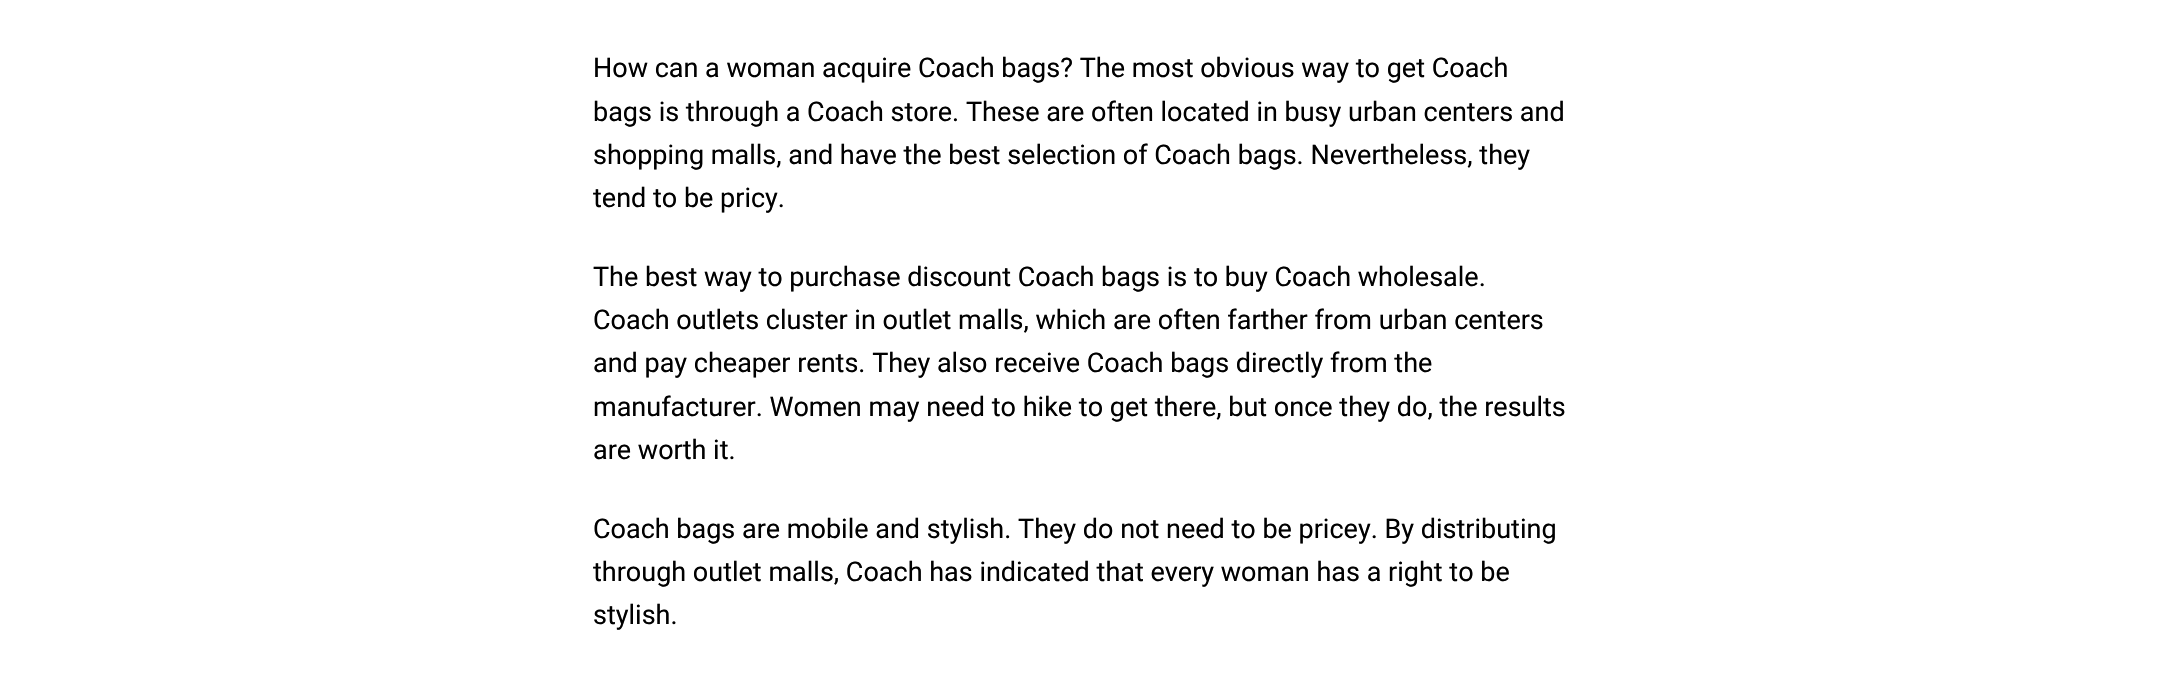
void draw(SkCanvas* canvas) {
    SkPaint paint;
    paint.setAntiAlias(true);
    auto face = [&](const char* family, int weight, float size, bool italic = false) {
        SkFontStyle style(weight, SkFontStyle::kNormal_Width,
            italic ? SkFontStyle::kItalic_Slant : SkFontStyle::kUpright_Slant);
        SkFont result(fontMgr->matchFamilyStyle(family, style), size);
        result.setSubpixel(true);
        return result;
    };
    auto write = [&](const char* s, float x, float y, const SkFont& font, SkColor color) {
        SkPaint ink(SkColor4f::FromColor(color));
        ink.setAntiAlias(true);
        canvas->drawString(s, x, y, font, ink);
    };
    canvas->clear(SK_ColorWHITE);
    auto kFont1 = face("Roboto", 400, 27);
    write("How can a woman acquire Coach bags? The most obvious way to get Coach", 593, 77, kFont1, SK_ColorBLACK);
    write("bags is through a Coach store. These are often located in busy urban centers and", 593, 121, kFont1, SK_ColorBLACK);
    write("shopping malls, and have the best selection of Coach bags. Nevertheless, they", 593, 164, kFont1, SK_ColorBLACK);
    write("tend to be pricy.", 593, 207, kFont1, SK_ColorBLACK);
    write("The best way to purchase discount Coach bags is to buy Coach wholesale.", 593, 286, kFont1, SK_ColorBLACK);
    write("Coach outlets cluster in outlet malls, which are often farther from urban centers", 593, 329, kFont1, SK_ColorBLACK);
    write("and pay cheaper rents. They also receive Coach bags directly from the", 593, 372, kFont1, SK_ColorBLACK);
    write("manufacturer. Women may need to hike to get there, but once they do, the results", 593, 416, kFont1, SK_ColorBLACK);
    write("are worth it.", 593, 459, kFont1, SK_ColorBLACK);
    write("Coach bags are mobile and stylish. They do not need to be pricey. By distributing", 593, 538, kFont1, SK_ColorBLACK);
    write("through outlet malls, Coach has indicated that every woman has a right to be", 593, 581, kFont1, SK_ColorBLACK);
    write("stylish.", 593, 624, kFont1, SK_ColorBLACK);
}
